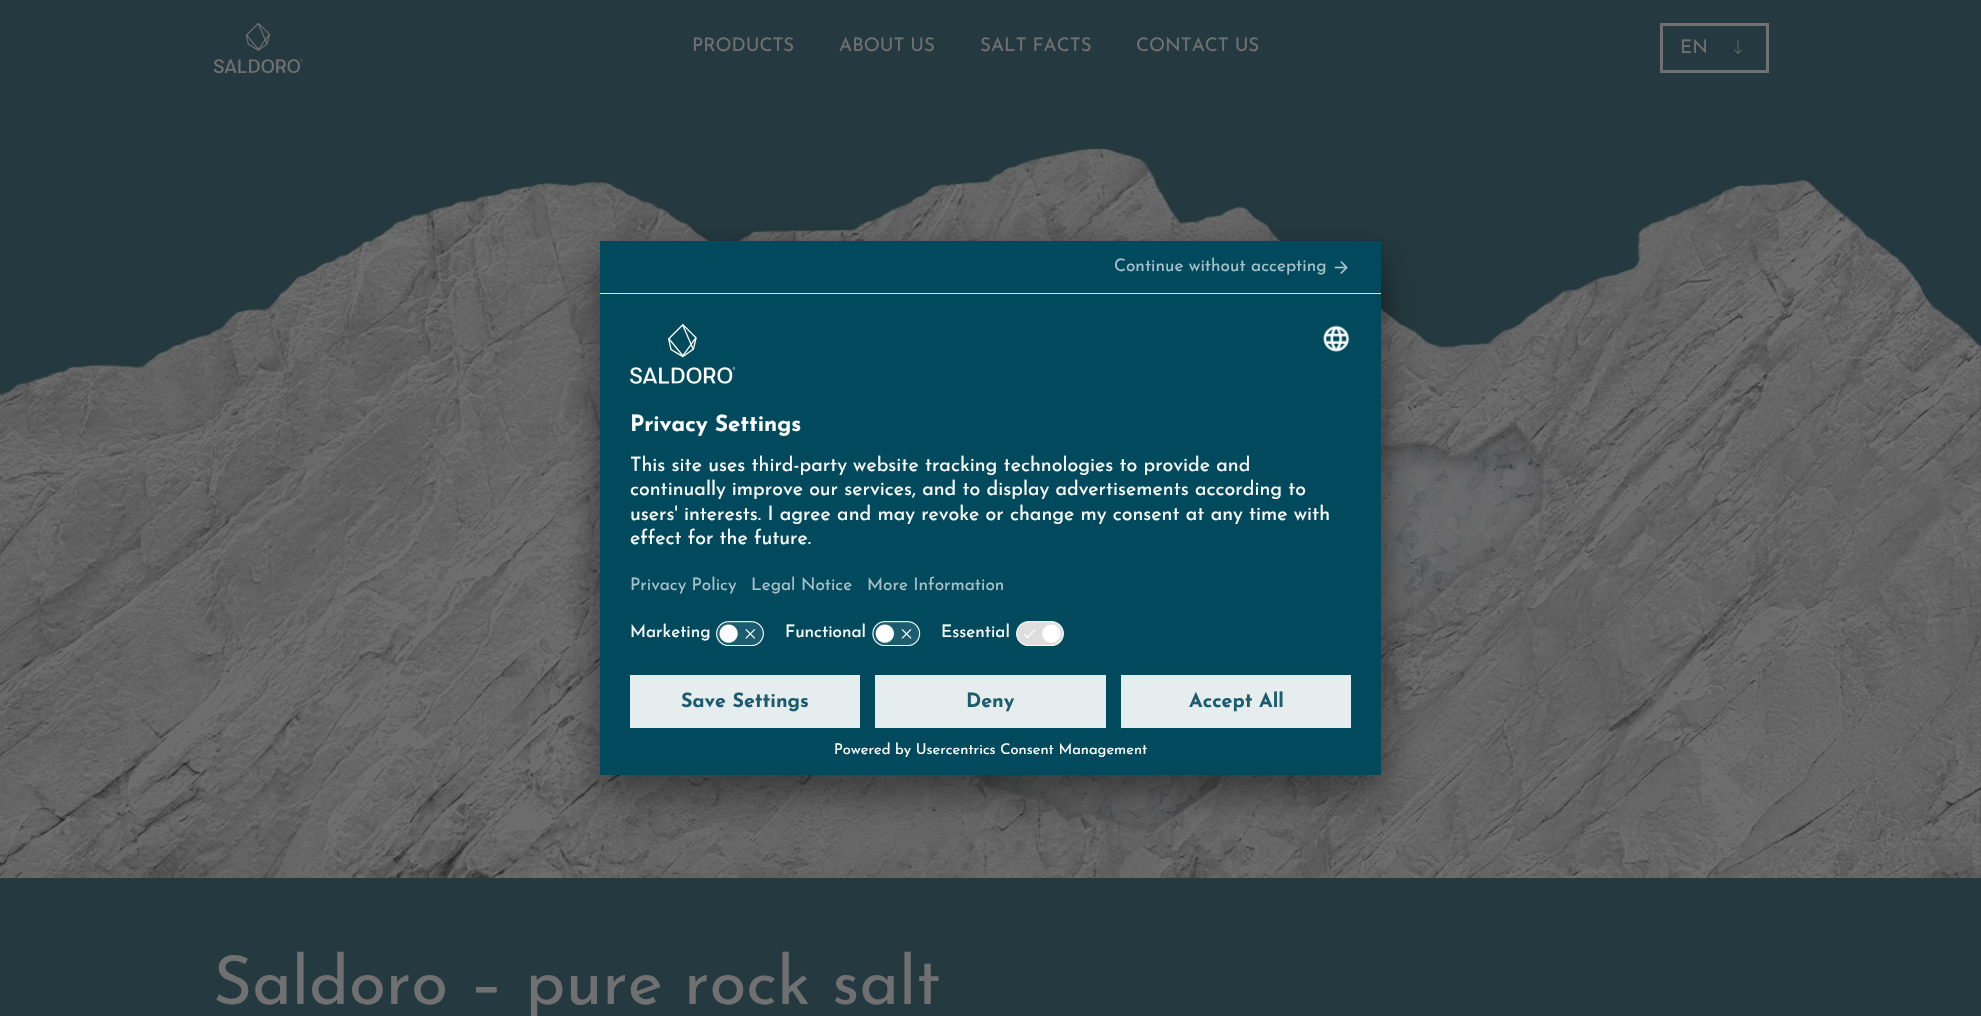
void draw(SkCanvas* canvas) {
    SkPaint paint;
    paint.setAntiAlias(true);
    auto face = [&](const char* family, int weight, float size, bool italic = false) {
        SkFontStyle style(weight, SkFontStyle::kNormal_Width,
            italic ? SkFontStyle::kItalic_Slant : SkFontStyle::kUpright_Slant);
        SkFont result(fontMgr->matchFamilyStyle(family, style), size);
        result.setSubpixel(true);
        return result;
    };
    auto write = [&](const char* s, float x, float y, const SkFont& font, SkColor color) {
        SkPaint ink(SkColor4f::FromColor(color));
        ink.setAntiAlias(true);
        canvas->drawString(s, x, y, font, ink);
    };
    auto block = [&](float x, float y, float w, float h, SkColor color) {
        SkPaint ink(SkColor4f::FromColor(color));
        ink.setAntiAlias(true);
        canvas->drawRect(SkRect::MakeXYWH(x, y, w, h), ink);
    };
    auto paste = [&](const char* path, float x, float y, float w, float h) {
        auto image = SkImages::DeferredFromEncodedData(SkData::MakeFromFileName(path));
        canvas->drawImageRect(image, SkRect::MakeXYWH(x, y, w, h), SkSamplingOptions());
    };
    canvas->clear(SkColorSetRGB(36, 58, 64));
    paste("pic1.png", 214, 23, 89, 51);
    auto kFont1 = face("Josefin Sans", 400, 18.75f);
    write("PRODUCTS", 692, 51, kFont1, SkColorSetRGB(112, 112, 112));
    write("ABOUT US", 839, 51, kFont1, SkColorSetRGB(112, 112, 112));
    write("SALT FACTS", 980, 51, kFont1, SkColorSetRGB(112, 112, 112));
    write("CONTACT US", 1136, 51, kFont1, SkColorSetRGB(112, 112, 112));
    block(1660, 23, 109, 3, SkColorSetRGB(112, 112, 112));
    block(1660, 70, 15, 3, SkColorSetRGB(112, 112, 112));
    block(1660, 23, 3, 50, SkColorSetRGB(112, 112, 112));
    block(1766, 23, 3, 50, SkColorSetRGB(112, 112, 112));
    block(1675, 70, 94, 3, SkColorSetRGB(112, 112, 112));
    write("EN", 1680, 53, kFont1, SkColorSetRGB(112, 112, 112));
    paste("pic2.png", 1734, 39, 8, 15);
    paste("pic9.png", 0, 143, 1981, 735);
    paint.setColor(SkColorSetARGB(77, 0, 0, 0));
    paint.setMaskFilter(SkMaskFilter::MakeBlur(kNormal_SkBlurStyle, 17.5f));
    canvas->drawRect(SkRect::MakeXYWH(600, 266, 781, 534), paint);
    paint.setMaskFilter(nullptr);
    paint.setColor(SkColorSetARGB(56, 0, 0, 0));
    paint.setMaskFilter(SkMaskFilter::MakeBlur(kNormal_SkBlurStyle, 16));
    canvas->drawRect(SkRect::MakeXYWH(600, 248, 781, 533), paint);
    paint.setMaskFilter(nullptr);
    block(600, 241, 781, 534, SkColorSetRGB(1, 74, 93));
    block(600, 293, 781, 1, SkColorSetRGB(222, 222, 222));
    auto kFont2 = face("Josefin Sans", 400, 17.25f);
    write("Continue without accepting", 1114, 271, kFont2, SkColorSetRGB(168, 193, 200));
    paste("pic3.png", 1334, 261, 14, 13);
    paste("pic4.png", 630, 324, 105, 60);
    paste("pic5.png", 1323, 325, 27, 27);
    auto kFont3 = face("Josefin Sans", 700, 22.25f);
    write("Privacy Settings", 630, 431, kFont3, SK_ColorWHITE);
    auto kFont4 = face("Josefin Sans", 400, 19.7f);
    write("This site uses third-party website tracking technologies to provide and", 630, 471, kFont4, SK_ColorWHITE);
    write("continually improve our services, and to display advertisements according to", 630, 495, kFont4, SK_ColorWHITE);
    write("users' interests. I agree and may revoke or change my consent at any time with", 630, 520, kFont4, SK_ColorWHITE);
    write("effect for the future.", 630, 544, kFont4, SK_ColorWHITE);
    write("Privacy Policy", 630, 590, kFont2, SkColorSetRGB(168, 193, 200));
    write("Legal Notice", 751, 590, kFont2, SkColorSetRGB(168, 193, 200));
    write("More Information", 867, 590, kFont2, SkColorSetRGB(168, 193, 200));
    write("Marketing", 630, 637, kFont2, SK_ColorWHITE);
    paste("pic6.png", 716, 621, 48, 25);
    write("Functional", 785, 637, kFont2, SK_ColorWHITE);
    paste("pic7.png", 872, 621, 49, 25);
    write("Essential", 941, 637, kFont2, SK_ColorWHITE);
    paste("pic8.png", 1016, 621, 48, 25);
    block(630, 675, 230, 53, SkColorSetRGB(230, 237, 239));
    auto kFont5 = face("Josefin Sans", 700, 19.7f);
    write("Save Settings", 681, 707, kFont5, SkColorSetRGB(27, 92, 110));
    block(875, 675, 231, 53, SkColorSetRGB(230, 237, 239));
    write("Deny", 966, 707, kFont5, SkColorSetRGB(27, 92, 110));
    block(1121, 675, 230, 53, SkColorSetRGB(230, 237, 239));
    write("Accept All", 1189, 707, kFont5, SkColorSetRGB(27, 92, 110));
    auto kFont6 = face("Josefin Sans", 400, 14.75f);
    write("Powered by Usercentrics Consent Management", 834, 754, kFont6, SK_ColorWHITE);
    auto kFont7 = face("Josefin Sans", 400, 67.5f);
    write("Saldoro – pure rock salt", 213, 1004, kFont7, SkColorSetRGB(112, 112, 112));
}
